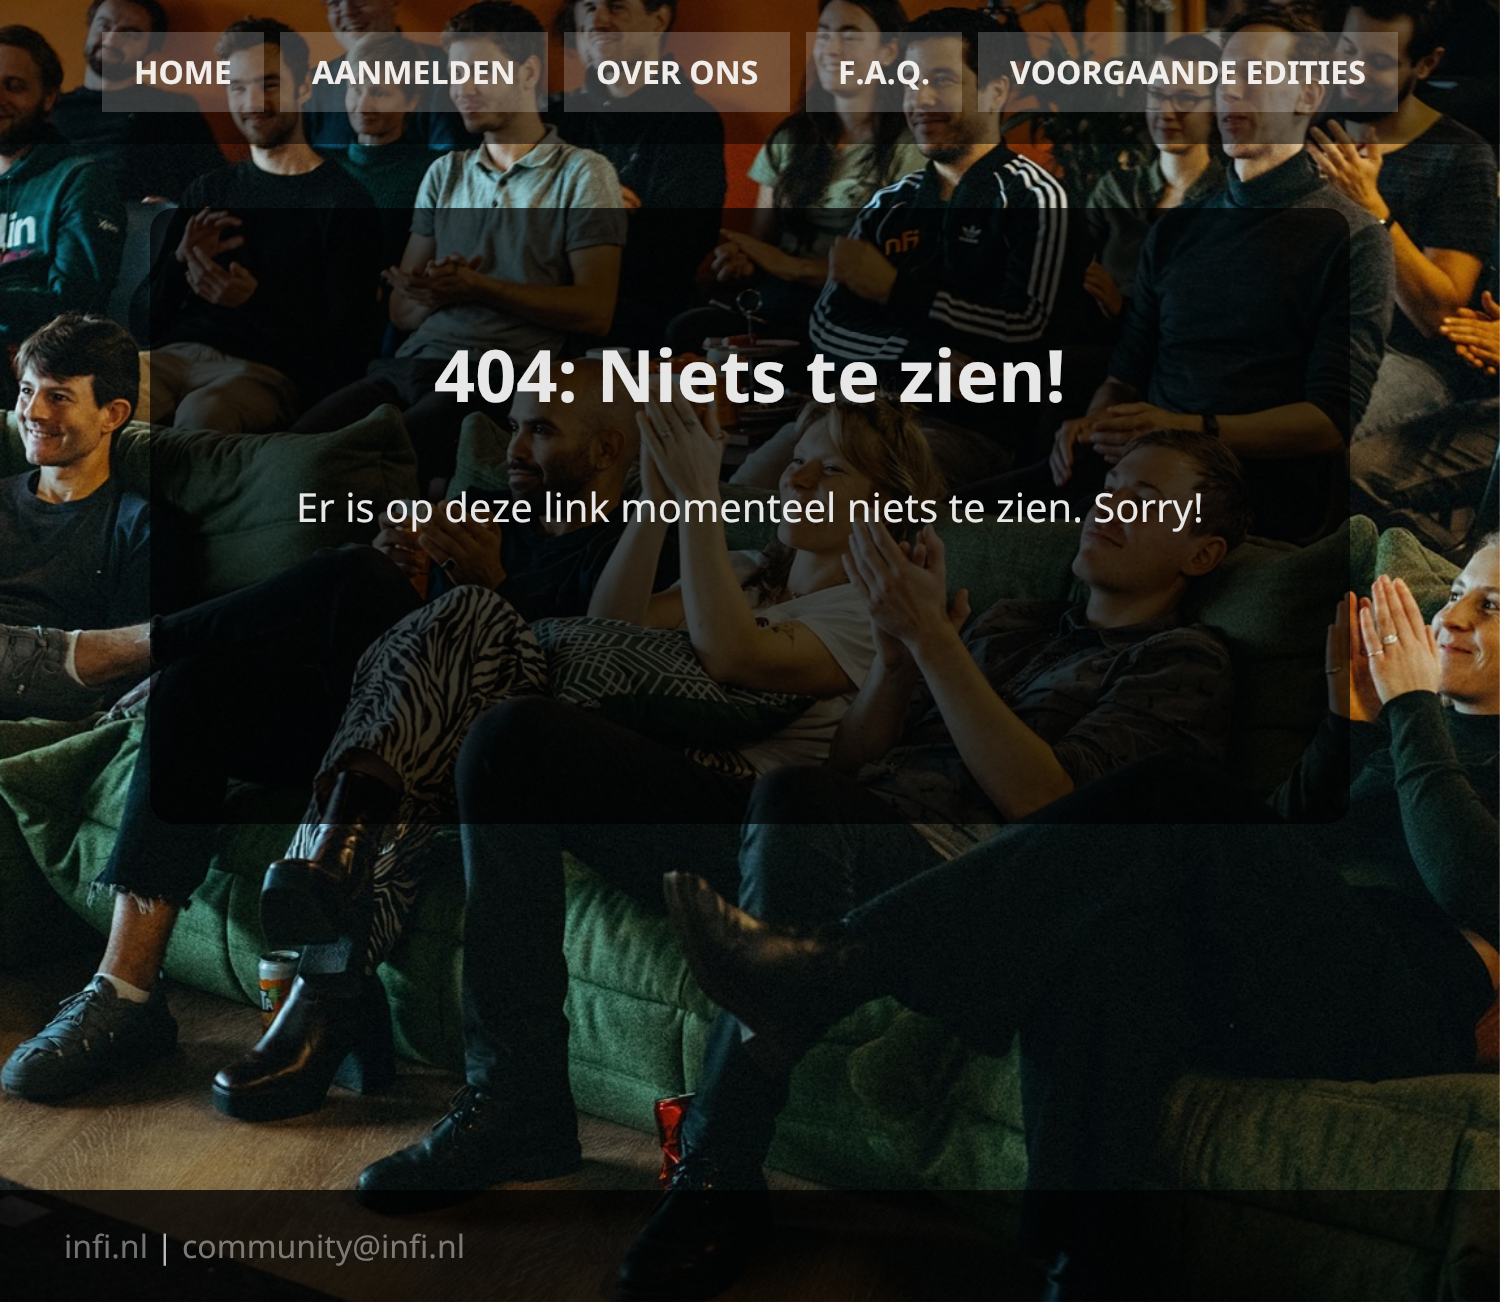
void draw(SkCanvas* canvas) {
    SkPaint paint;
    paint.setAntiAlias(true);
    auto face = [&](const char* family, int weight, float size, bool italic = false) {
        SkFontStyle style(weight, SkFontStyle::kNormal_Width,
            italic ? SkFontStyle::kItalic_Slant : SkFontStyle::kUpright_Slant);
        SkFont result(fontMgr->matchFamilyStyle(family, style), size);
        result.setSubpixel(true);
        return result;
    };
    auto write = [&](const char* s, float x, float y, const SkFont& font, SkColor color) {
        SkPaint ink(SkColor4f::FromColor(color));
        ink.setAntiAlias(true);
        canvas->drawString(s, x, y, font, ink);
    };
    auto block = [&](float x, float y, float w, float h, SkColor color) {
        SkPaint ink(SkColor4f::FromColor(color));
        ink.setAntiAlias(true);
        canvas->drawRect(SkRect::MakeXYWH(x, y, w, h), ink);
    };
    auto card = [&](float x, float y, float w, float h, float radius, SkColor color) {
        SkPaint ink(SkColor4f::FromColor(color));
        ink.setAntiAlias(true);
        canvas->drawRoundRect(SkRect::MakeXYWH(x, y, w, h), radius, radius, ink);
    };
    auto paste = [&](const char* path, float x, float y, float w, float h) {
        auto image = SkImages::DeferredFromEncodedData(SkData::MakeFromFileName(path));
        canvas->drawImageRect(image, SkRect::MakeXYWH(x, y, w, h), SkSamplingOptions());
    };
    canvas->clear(SK_ColorWHITE);
    paste("pic1.png", 0, 0, 1500, 1302);
    block(0, 0, 1500, 144, SkColorSetARGB(128, 0, 0, 0));
    block(102, 32, 162, 80, SkColorSetARGB(51, 255, 255, 255));
    auto kFont1 = face("Noto Sans", 700, 32);
    write("HOME", 134, 84, kFont1, SkColorSetRGB(240, 237, 235));
    block(280, 32, 268, 80, SkColorSetARGB(51, 255, 255, 255));
    write("AANMELDEN", 312, 84, kFont1, SkColorSetRGB(240, 237, 235));
    block(564, 32, 226, 80, SkColorSetARGB(51, 255, 255, 255));
    write("OVER ONS", 596, 84, kFont1, SkColorSetRGB(240, 237, 235));
    block(806, 32, 156, 80, SkColorSetARGB(51, 255, 255, 255));
    write("F.A.Q.", 838, 84, kFont1, SkColorSetRGB(240, 237, 235));
    block(978, 32, 420, 80, SkColorSetARGB(51, 255, 255, 255));
    write("VOORGAANDE EDITIES", 1010, 84, kFont1, SkColorSetRGB(240, 237, 235));
    card(150, 208, 1200, 616, 24, SkColorSetARGB(179, 0, 0, 0));
    auto kFont2 = face("Noto Sans", 700, 72);
    write("404: Niets te zien!", 434, 402, kFont2, SkColorSetRGB(231, 231, 231));
    auto kFont3 = face("Noto Sans", 400, 40);
    write("Er is op deze link momenteel niets te zien. Sorry!", 296, 522, kFont3, SkColorSetRGB(231, 231, 231));
    {
        const SkColor colors[] = {SkColorSetARGB(204, 0, 0, 0), SkColorSetARGB(163, 0, 0, 0)};
        const float stops[] = {0, 1};
        const SkPoint ends[] = {{0, 1246}, {1500, 1246}};
        paint.setShader(SkGradientShader::MakeLinear(ends, colors, stops, 2, SkTileMode::kClamp));
        paint.setAlpha(255);
    }
    canvas->drawRect(SkRect::MakeXYWH(0, 1190, 1500, 112), paint);
    auto kFont4 = face("Noto Sans", 400, 32);
    write("infi.nl", 64, 1258, kFont4, SkColorSetRGB(113, 114, 114));
    write("|", 156, 1258, kFont4, SkColorSetRGB(186, 186, 186));
    write("community@infi.nl", 182, 1258, kFont4, SkColorSetRGB(124, 121, 117));
}
